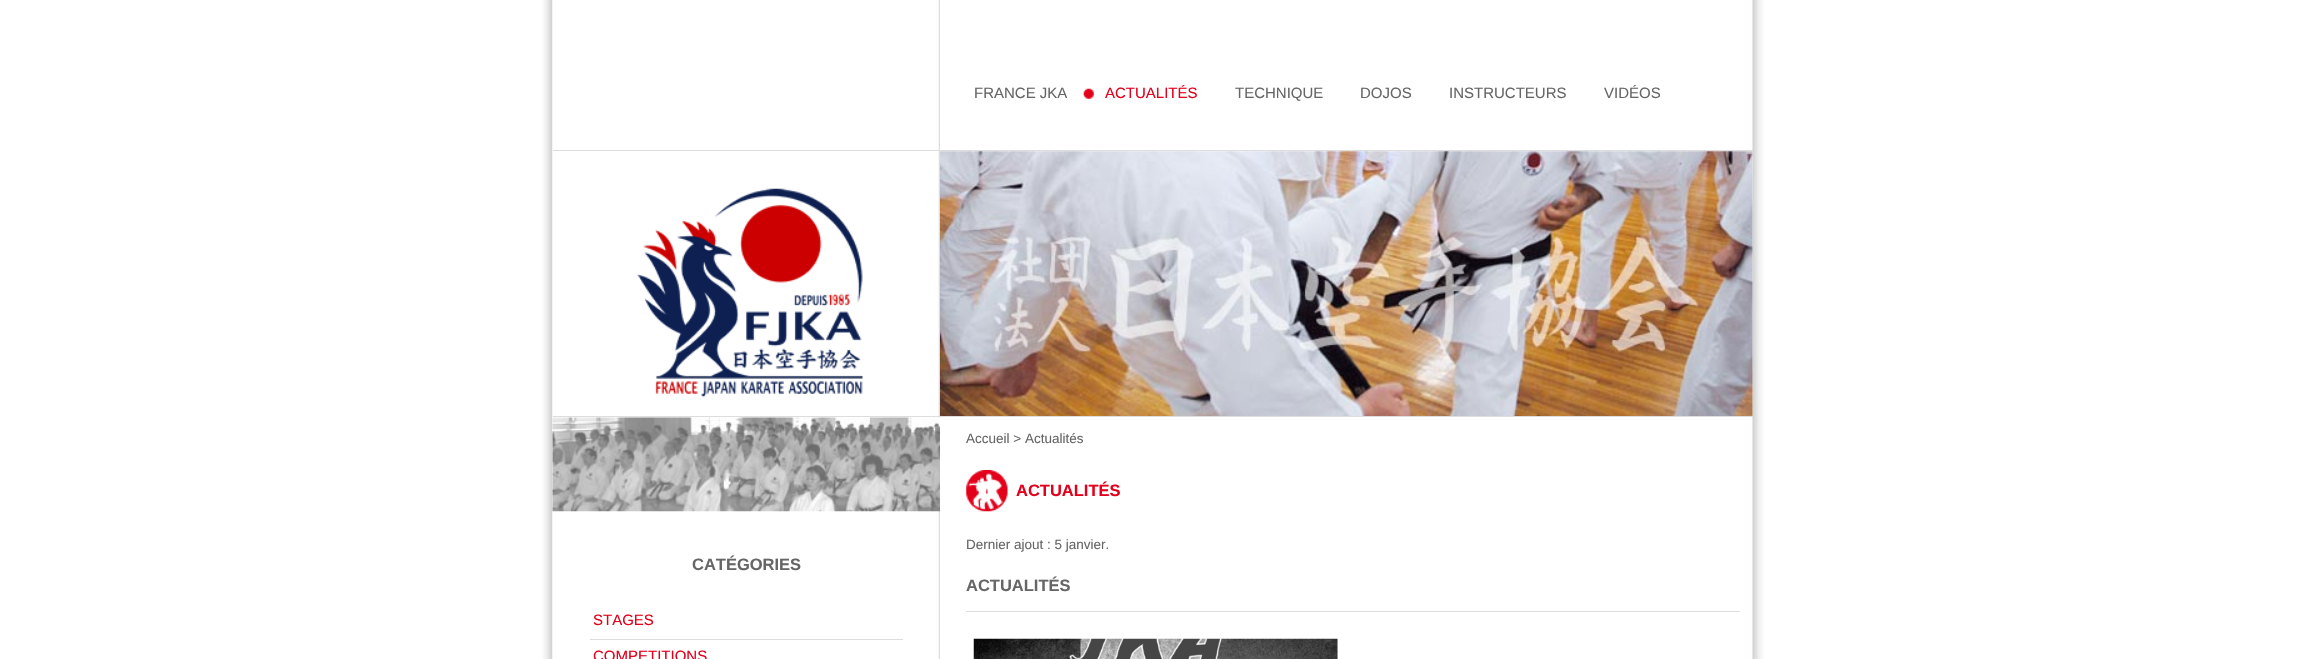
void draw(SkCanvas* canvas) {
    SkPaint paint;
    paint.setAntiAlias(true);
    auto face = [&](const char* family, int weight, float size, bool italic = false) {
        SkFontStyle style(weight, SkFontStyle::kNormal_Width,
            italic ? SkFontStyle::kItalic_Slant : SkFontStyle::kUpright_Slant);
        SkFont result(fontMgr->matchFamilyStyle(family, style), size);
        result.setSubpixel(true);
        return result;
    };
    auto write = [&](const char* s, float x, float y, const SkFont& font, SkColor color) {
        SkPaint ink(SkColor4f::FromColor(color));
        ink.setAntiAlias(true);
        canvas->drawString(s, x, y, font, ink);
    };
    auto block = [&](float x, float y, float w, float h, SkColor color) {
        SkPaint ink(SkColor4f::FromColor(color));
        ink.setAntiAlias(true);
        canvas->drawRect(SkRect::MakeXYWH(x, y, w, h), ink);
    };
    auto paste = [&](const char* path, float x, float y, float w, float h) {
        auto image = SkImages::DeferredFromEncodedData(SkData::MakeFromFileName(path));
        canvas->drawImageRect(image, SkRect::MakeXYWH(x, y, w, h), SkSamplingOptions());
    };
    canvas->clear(SK_ColorWHITE);
    paste("pic1.png", 542, 0, 1222, 659);
    paste("pic2.png", 552, 0, 388, 659);
    auto kFont1 = face("Liberation Sans", 400, 15);
    write("FRANCE JKA", 974, 98, kFont1, SkColorSetRGB(102, 102, 102));
    paste("pic3.png", 1083, 88, 11, 11);
    write("ACTUALITÉS", 1105, 98, kFont1, SkColorSetRGB(227, 0, 27));
    write("TECHNIQUE", 1235, 98, kFont1, SkColorSetRGB(102, 102, 102));
    write("DOJOS", 1360, 98, kFont1, SkColorSetRGB(102, 102, 102));
    write("INSTRUCTEURS", 1449, 98, kFont1, SkColorSetRGB(102, 102, 102));
    write("VIDÉOS", 1604, 98, kFont1, SkColorSetRGB(102, 102, 102));
    paste("pic4.png", 940, 151, 813, 265);
    block(553, 150, 1200, 1, SkColorSetRGB(221, 221, 221));
    block(553, 416, 1200, 1, SkColorSetRGB(221, 221, 221));
    paste("pic5.png", 637, 188, 226, 209);
    auto kFont2 = face("Liberation Sans", 400, 13.5f);
    write("Accueil > Actualités", 966, 443, kFont2, SkColorSetRGB(102, 102, 102));
    paste("pic6.png", 966, 470, 42, 42);
    auto kFont3 = face("Liberation Sans", 700, 16.5f);
    write("ACTUALITÉS", 1016, 496, kFont3, SkColorSetRGB(227, 0, 27));
    write("Dernier ajout : 5 janvier.", 966, 549, kFont2, SkColorSetRGB(102, 102, 102));
    block(966, 611, 774, 1, SkColorSetRGB(221, 221, 221));
    write("ACTUALITÉS", 966, 591, kFont3, SkColorSetRGB(102, 102, 102));
    paste("pic7.png", 973, 638, 365, 21);
    paste("pic8.png", 552, 417, 388, 95);
    write("CATÉGORIES", 692, 570, kFont3, SkColorSetRGB(102, 102, 102));
    write("STAGES", 593, 625, kFont1, SkColorSetRGB(227, 0, 27));
    block(590, 639, 313, 1, SkColorSetRGB(221, 221, 221));
    write("COMPETITIONS", 593, 661, kFont1, SkColorSetRGB(227, 0, 27));
}
